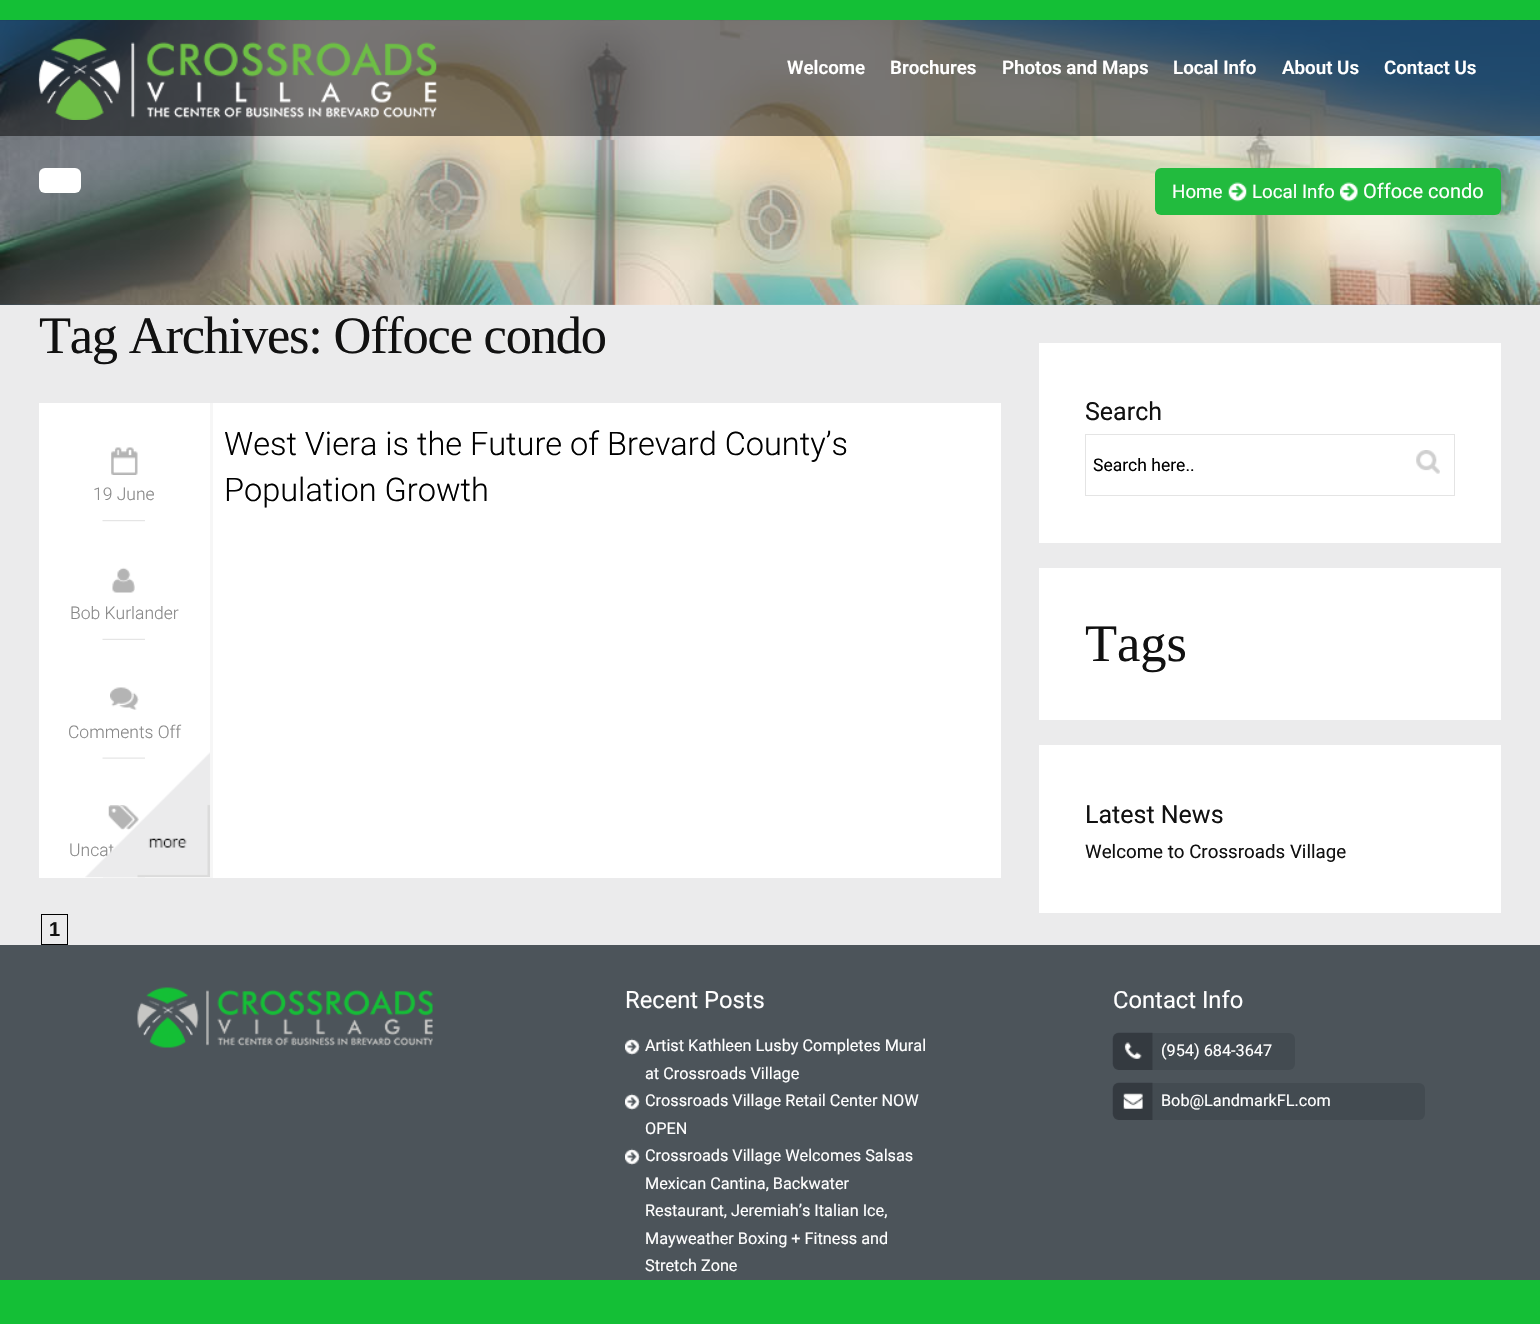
void draw(SkCanvas* canvas) {
    SkPaint paint;
    paint.setAntiAlias(true);
    auto face = [&](const char* family, int weight, float size, bool italic = false) {
        SkFontStyle style(weight, SkFontStyle::kNormal_Width,
            italic ? SkFontStyle::kItalic_Slant : SkFontStyle::kUpright_Slant);
        SkFont result(fontMgr->matchFamilyStyle(family, style), size);
        result.setSubpixel(true);
        return result;
    };
    auto write = [&](const char* s, float x, float y, const SkFont& font, SkColor color) {
        SkPaint ink(SkColor4f::FromColor(color));
        ink.setAntiAlias(true);
        canvas->drawString(s, x, y, font, ink);
    };
    auto writeSpaced = [&](const char* s, float x, float y, const SkFont& font, const SkPaint& ink, float letter, float word) {
        std::vector<SkGlyphID> glyphs(font.countText(s, strlen(s), SkTextEncoding::kUTF8));
        std::vector<float> xs(glyphs.size());
        font.textToGlyphs(s, strlen(s), SkTextEncoding::kUTF8, glyphs);
        font.getXPos(glyphs, xs, x);
        float extra = 0;
        for (size_t i = 0; i < glyphs.size(); i++) {
            xs[i] += extra;
            extra += letter + word * (glyphs[i] == font.unicharToGlyph(' '));
        }
        canvas->drawTextBlob(SkTextBlob::MakeFromPosHGlyphs(glyphs, xs, y, font), 0, 0, ink);
    };
    auto block = [&](float x, float y, float w, float h, SkColor color) {
        SkPaint ink(SkColor4f::FromColor(color));
        ink.setAntiAlias(true);
        canvas->drawRect(SkRect::MakeXYWH(x, y, w, h), ink);
    };
    auto card = [&](float x, float y, float w, float h, float radius, SkColor color) {
        SkPaint ink(SkColor4f::FromColor(color));
        ink.setAntiAlias(true);
        canvas->drawRoundRect(SkRect::MakeXYWH(x, y, w, h), radius, radius, ink);
    };
    auto paste = [&](const char* path, float x, float y, float w, float h) {
        auto image = SkImages::DeferredFromEncodedData(SkData::MakeFromFileName(path));
        canvas->drawImageRect(image, SkRect::MakeXYWH(x, y, w, h), SkSamplingOptions());
    };
    canvas->clear(SkColorSetRGB(235, 235, 236));
    paste("pic1.png", 0, 20, 1540, 285);
    block(0, 0, 1540, 20, SkColorSetRGB(20, 191, 54));
    block(0, 20, 1540, 116, SkColorSetARGB(128, 0, 0, 0));
    paste("pic2.png", 38, 38, 399, 82);
    auto kFont1 = face("Roboto", 600, 18.75f);
    write("Welcome", 787, 74, kFont1, SK_ColorWHITE);
    write("Brochures", 890, 74, kFont1, SK_ColorWHITE);
    write("Photos and Maps", 1002, 74, kFont1, SK_ColorWHITE);
    write("Local Info", 1173, 74, kFont1, SK_ColorWHITE);
    write("About Us", 1282, 74, kFont1, SK_ColorWHITE);
    write("Contact Us", 1384, 74, kFont1, SK_ColorWHITE);
    card(39, 168, 42, 25, 6, SK_ColorWHITE);
    card(1155, 168, 346, 47, 6, SkColorSetRGB(34, 187, 62));
    auto kFont2 = face("Roboto", 400, 18.75f);
    write("Home", 1172, 198, kFont2, SK_ColorWHITE);
    paste("pic3.png", 1228, 182, 19, 20);
    write("Local Info", 1252, 198, kFont2, SK_ColorWHITE);
    paste("pic4.png", 1340, 182, 18, 20);
    auto kFont3 = face("Roboto", 400, 20);
    write("Offoce condo", 1363, 198, kFont3, SK_ColorWHITE);
    auto kFont4 = face("Liberation Serif", 400, 52.5f);
    paint.setColor(SkColorSetRGB(17, 17, 17));
    writeSpaced("Tag Archives: Offoce condo", 39, 353, kFont4, paint, -1.25f, 0);
    block(39, 403, 962, 475, SK_ColorWHITE);
    auto kFont5 = face("Roboto", 300, 32.5f);
    write("West Viera is the Future of Brevard County’s", 224, 455, kFont5, SK_ColorBLACK);
    write("Population Growth", 224, 501, kFont5, SK_ColorBLACK);
    block(210, 403, 3, 475, SkColorSetRGB(246, 246, 246));
    paste("pic5.png", 111, 447, 27, 28);
    auto kFont6 = face("Roboto", 300, 17.5f);
    write("19 June", 93, 500, kFont6, SkColorSetRGB(136, 136, 136));
    paste("pic6.png", 102, 520, 43, 2);
    paste("pic7.png", 112, 567, 23, 26);
    write("Bob Kurlander", 70, 619, kFont6, SkColorSetRGB(136, 136, 136));
    paste("pic8.png", 102, 638, 43, 2);
    paste("pic9.png", 110, 687, 29, 23);
    write("Comments Off", 68, 738, kFont6, SkColorSetRGB(136, 136, 136));
    paste("pic10.png", 102, 757, 43, 2);
    paste("pic11.png", 108, 805, 31, 25);
    write("Uncat", 69, 856, kFont6, SkColorSetRGB(136, 136, 136));
    paste("pic12.png", 103, 877, 42, 1);
    paste("pic13.png", 85, 752, 125, 126);
    paint.setStyle(SkPaint::kStroke_Style);
    paint.setStrokeWidth(1);
    paint.setColor(SK_ColorBLACK);
    canvas->drawRect(SkRect::MakeXYWH(41.5f, 914.5f, 26, 30), paint);
    auto kFont7 = face("Liberation Sans", 700, 20);
    write("1", 49, 936, kFont7, SkColorSetRGB(17, 17, 17));
    block(1039, 343, 462, 200, SK_ColorWHITE);
    auto kFont8 = face("Roboto", 400, 25);
    write("Search", 1085, 420, kFont8, SkColorSetRGB(17, 17, 17));
    paint.setColor(SkColorSetRGB(228, 228, 228));
    canvas->drawRect(SkRect::MakeXYWH(1085.5f, 434.5f, 369, 61), paint);
    auto kFont9 = face("Roboto", 400, 17.5f);
    write("Search here..", 1093, 471, kFont9, SK_ColorBLACK);
    paste("pic14.png", 1416, 450, 24, 24);
    block(1039, 568, 462, 152, SK_ColorWHITE);
    write("Tags", 1085, 661, kFont4, SkColorSetRGB(17, 17, 17));
    block(1039, 745, 462, 168, SK_ColorWHITE);
    write("Latest News", 1085, 823, kFont8, SkColorSetRGB(17, 17, 17));
    write("Welcome to Crossroads Village", 1085, 858, kFont2, SkColorSetRGB(17, 17, 17));
    block(0, 945, 1540, 335, SkColorSetRGB(76, 84, 90));
    paste("pic15.png", 137, 987, 296, 61);
    auto kFont10 = face("Roboto", 400, 23.75f);
    write("Recent Posts", 625, 1008, kFont10, SK_ColorWHITE);
    paste("pic16.png", 625, 1038, 15, 17);
    auto kFont11 = face("Roboto", 400, 16.25f);
    write("Artist Kathleen Lusby Completes Mural", 645, 1051, kFont11, SK_ColorWHITE);
    write("at Crossroads Village", 645, 1079, kFont11, SK_ColorWHITE);
    paste("pic16.png", 625, 1093, 15, 17);
    write("Crossroads Village Retail Center NOW", 645, 1106, kFont11, SK_ColorWHITE);
    write("OPEN", 645, 1134, kFont11, SK_ColorWHITE);
    paste("pic16.png", 625, 1148, 15, 17);
    write("Crossroads Village Welcomes Salsas", 645, 1161, kFont11, SK_ColorWHITE);
    write("Mexican Cantina, Backwater", 645, 1189, kFont11, SK_ColorWHITE);
    write("Restaurant, Jeremiah’s Italian Ice,", 645, 1216, kFont11, SK_ColorWHITE);
    write("Mayweather Boxing + Fitness and", 645, 1244, kFont11, SK_ColorWHITE);
    write("Stretch Zone", 645, 1271, kFont11, SK_ColorWHITE);
    write("Contact Info", 1113, 1008, kFont10, SK_ColorWHITE);
    card(1113, 1033, 182, 37, 6, SkColorSetRGB(67, 75, 81));
    paste("pic17.png", 1112, 1032, 41, 38);
    write("(954) 684-3647", 1161, 1056, kFont11, SK_ColorWHITE);
    card(1113, 1083, 312, 37, 6, SkColorSetRGB(67, 75, 81));
    paste("pic18.png", 1112, 1082, 41, 38);
    write("Bob@LandmarkFL.com", 1161, 1106, kFont11, SK_ColorWHITE);
    block(0, 1280, 1540, 44, SkColorSetRGB(20, 191, 54));
}
